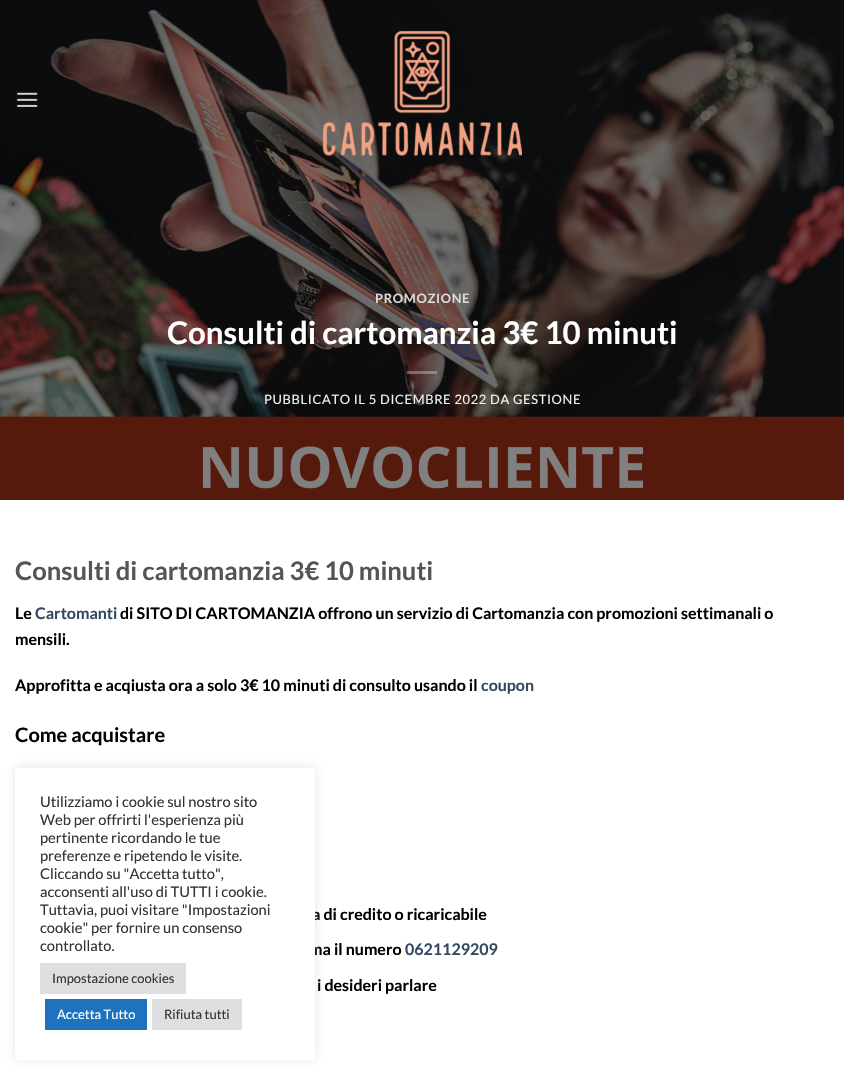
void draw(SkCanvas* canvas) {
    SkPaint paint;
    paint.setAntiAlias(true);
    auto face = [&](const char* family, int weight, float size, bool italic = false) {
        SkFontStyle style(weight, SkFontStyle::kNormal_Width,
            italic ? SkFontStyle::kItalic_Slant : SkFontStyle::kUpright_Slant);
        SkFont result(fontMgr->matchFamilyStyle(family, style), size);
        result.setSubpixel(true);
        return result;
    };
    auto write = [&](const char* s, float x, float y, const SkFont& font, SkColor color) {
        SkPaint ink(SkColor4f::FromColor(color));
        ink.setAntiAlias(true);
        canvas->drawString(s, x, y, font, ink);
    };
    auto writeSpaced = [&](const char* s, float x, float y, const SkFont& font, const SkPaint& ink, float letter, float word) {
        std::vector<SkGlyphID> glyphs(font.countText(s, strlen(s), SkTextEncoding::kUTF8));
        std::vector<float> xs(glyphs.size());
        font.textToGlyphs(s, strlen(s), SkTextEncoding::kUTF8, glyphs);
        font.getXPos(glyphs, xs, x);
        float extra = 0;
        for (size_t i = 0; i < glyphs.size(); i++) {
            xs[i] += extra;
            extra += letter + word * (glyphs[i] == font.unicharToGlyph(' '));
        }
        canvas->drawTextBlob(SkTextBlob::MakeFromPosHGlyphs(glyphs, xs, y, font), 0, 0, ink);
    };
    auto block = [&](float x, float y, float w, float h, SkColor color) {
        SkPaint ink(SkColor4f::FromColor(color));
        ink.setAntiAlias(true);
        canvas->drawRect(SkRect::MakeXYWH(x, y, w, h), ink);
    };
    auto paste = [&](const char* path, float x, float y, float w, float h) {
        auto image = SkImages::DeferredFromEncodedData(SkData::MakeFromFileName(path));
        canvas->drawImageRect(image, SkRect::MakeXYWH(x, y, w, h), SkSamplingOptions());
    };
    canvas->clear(SK_ColorWHITE);
    paste("pic3.png", 0, 0, 844, 500);
    paste("pic1.png", 17, 92, 21, 15);
    paste("pic2.png", 322, 30, 200, 126);
    auto kFont1 = face("Lato", 700, 12.9f);
    paint.setColor(SkColorSetRGB(220, 217, 216));
    writeSpaced("PROMOZIONE", 375, 303, kFont1, paint, 0.65f, 0);
    auto kFont2 = face("Lato", 700, 31.25f);
    write("Consulti di cartomanzia 3€ 10 minuti", 167, 344, kFont2, SK_ColorWHITE);
    block(407, 371, 30, 3, SkColorSetARGB(77, 255, 255, 255));
    auto kFont3 = face("Lato", 400, 12.9f);
    paint.setColor(SkColorSetRGB(241, 241, 241));
    writeSpaced("PUBBLICATO IL 5 DICEMBRE 2022 DA GESTIONE", 264, 404, kFont3, paint, 0.65f, 0);
    auto kFont4 = face("Lato", 700, 25.6f);
    write("Consulti di cartomanzia 3€ 10 minuti", 15, 580, kFont4, SkColorSetRGB(85, 85, 85));
    auto kFont5 = face("Lato", 700, 16);
    write("Le", 15, 619, kFont5, SK_ColorBLACK);
    write("Cartomanti", 35, 619, kFont5, SkColorSetRGB(51, 72, 98));
    write("di SITO DI CARTOMANZIA offrono un servizio di Cartomanzia con promozioni settimanali o", 120, 619, kFont5, SK_ColorBLACK);
    write("mensili.", 15, 645, kFont5, SK_ColorBLACK);
    write("Approfitta e acqiusta ora a solo 3€ 10 minuti di consulto usando il", 15, 691, kFont5, SK_ColorBLACK);
    write("coupon", 481, 691, kFont5, SkColorSetRGB(51, 72, 98));
    auto kFont6 = face("Lato", 700, 20);
    write("Come acquistare", 15, 742, kFont6, SK_ColorBLACK);
    write("a di credito o ricaricabile", 312, 920, kFont5, SK_ColorBLACK);
    write("ma il numero", 309, 955, kFont5, SK_ColorBLACK);
    write("0621129209", 405, 955, kFont5, SkColorSetRGB(51, 72, 98));
    write("i desideri parlare", 317, 991, kFont5, SK_ColorBLACK);
    paint.setColor(SkColorSetARGB(77, 172, 171, 171));
    paint.setMaskFilter(SkMaskFilter::MakeBlur(kNormal_SkBlurStyle, 5));
    canvas->drawRect(SkRect::MakeXYWH(15, 767, 300, 292), paint);
    paint.setMaskFilter(nullptr);
    block(15, 768, 300, 292, SK_ColorWHITE);
    auto kFont7 = face("Lato", 400, 14.7f);
    write("Utilizziamo i cookie sul nostro sito", 40, 807, kFont7, SkColorSetRGB(51, 51, 51));
    write("Web per offrirti l'esperienza più", 40, 825, kFont7, SkColorSetRGB(51, 51, 51));
    write("pertinente ricordando le tue", 40, 843, kFont7, SkColorSetRGB(51, 51, 51));
    write("preferenze e ripetendo le visite.", 40, 861, kFont7, SkColorSetRGB(51, 51, 51));
    write("Cliccando su \"Accetta tutto\",", 40, 879, kFont7, SkColorSetRGB(51, 51, 51));
    write("acconsenti all'uso di TUTTI i cookie.", 40, 897, kFont7, SkColorSetRGB(51, 51, 51));
    write("Tuttavia, puoi visitare \"Impostazioni", 40, 915, kFont7, SkColorSetRGB(51, 51, 51));
    write("cookie\" per fornire un consenso", 40, 933, kFont7, SkColorSetRGB(51, 51, 51));
    write("controllato.", 40, 951, kFont7, SkColorSetRGB(51, 51, 51));
    block(40, 963, 146, 31, SkColorSetRGB(222, 223, 224));
    auto kFont8 = face("Lato", 400, 13);
    write("Impostazione cookies", 52, 983, kFont8, SkColorSetRGB(51, 51, 51));
    block(45, 999, 102, 31, SkColorSetRGB(30, 115, 190));
    write("Accetta Tutto", 57, 1019, kFont8, SK_ColorWHITE);
    block(152, 999, 90, 31, SkColorSetRGB(222, 223, 224));
    write("Rifiuta tutti", 164, 1019, kFont8, SkColorSetRGB(51, 51, 51));
}
